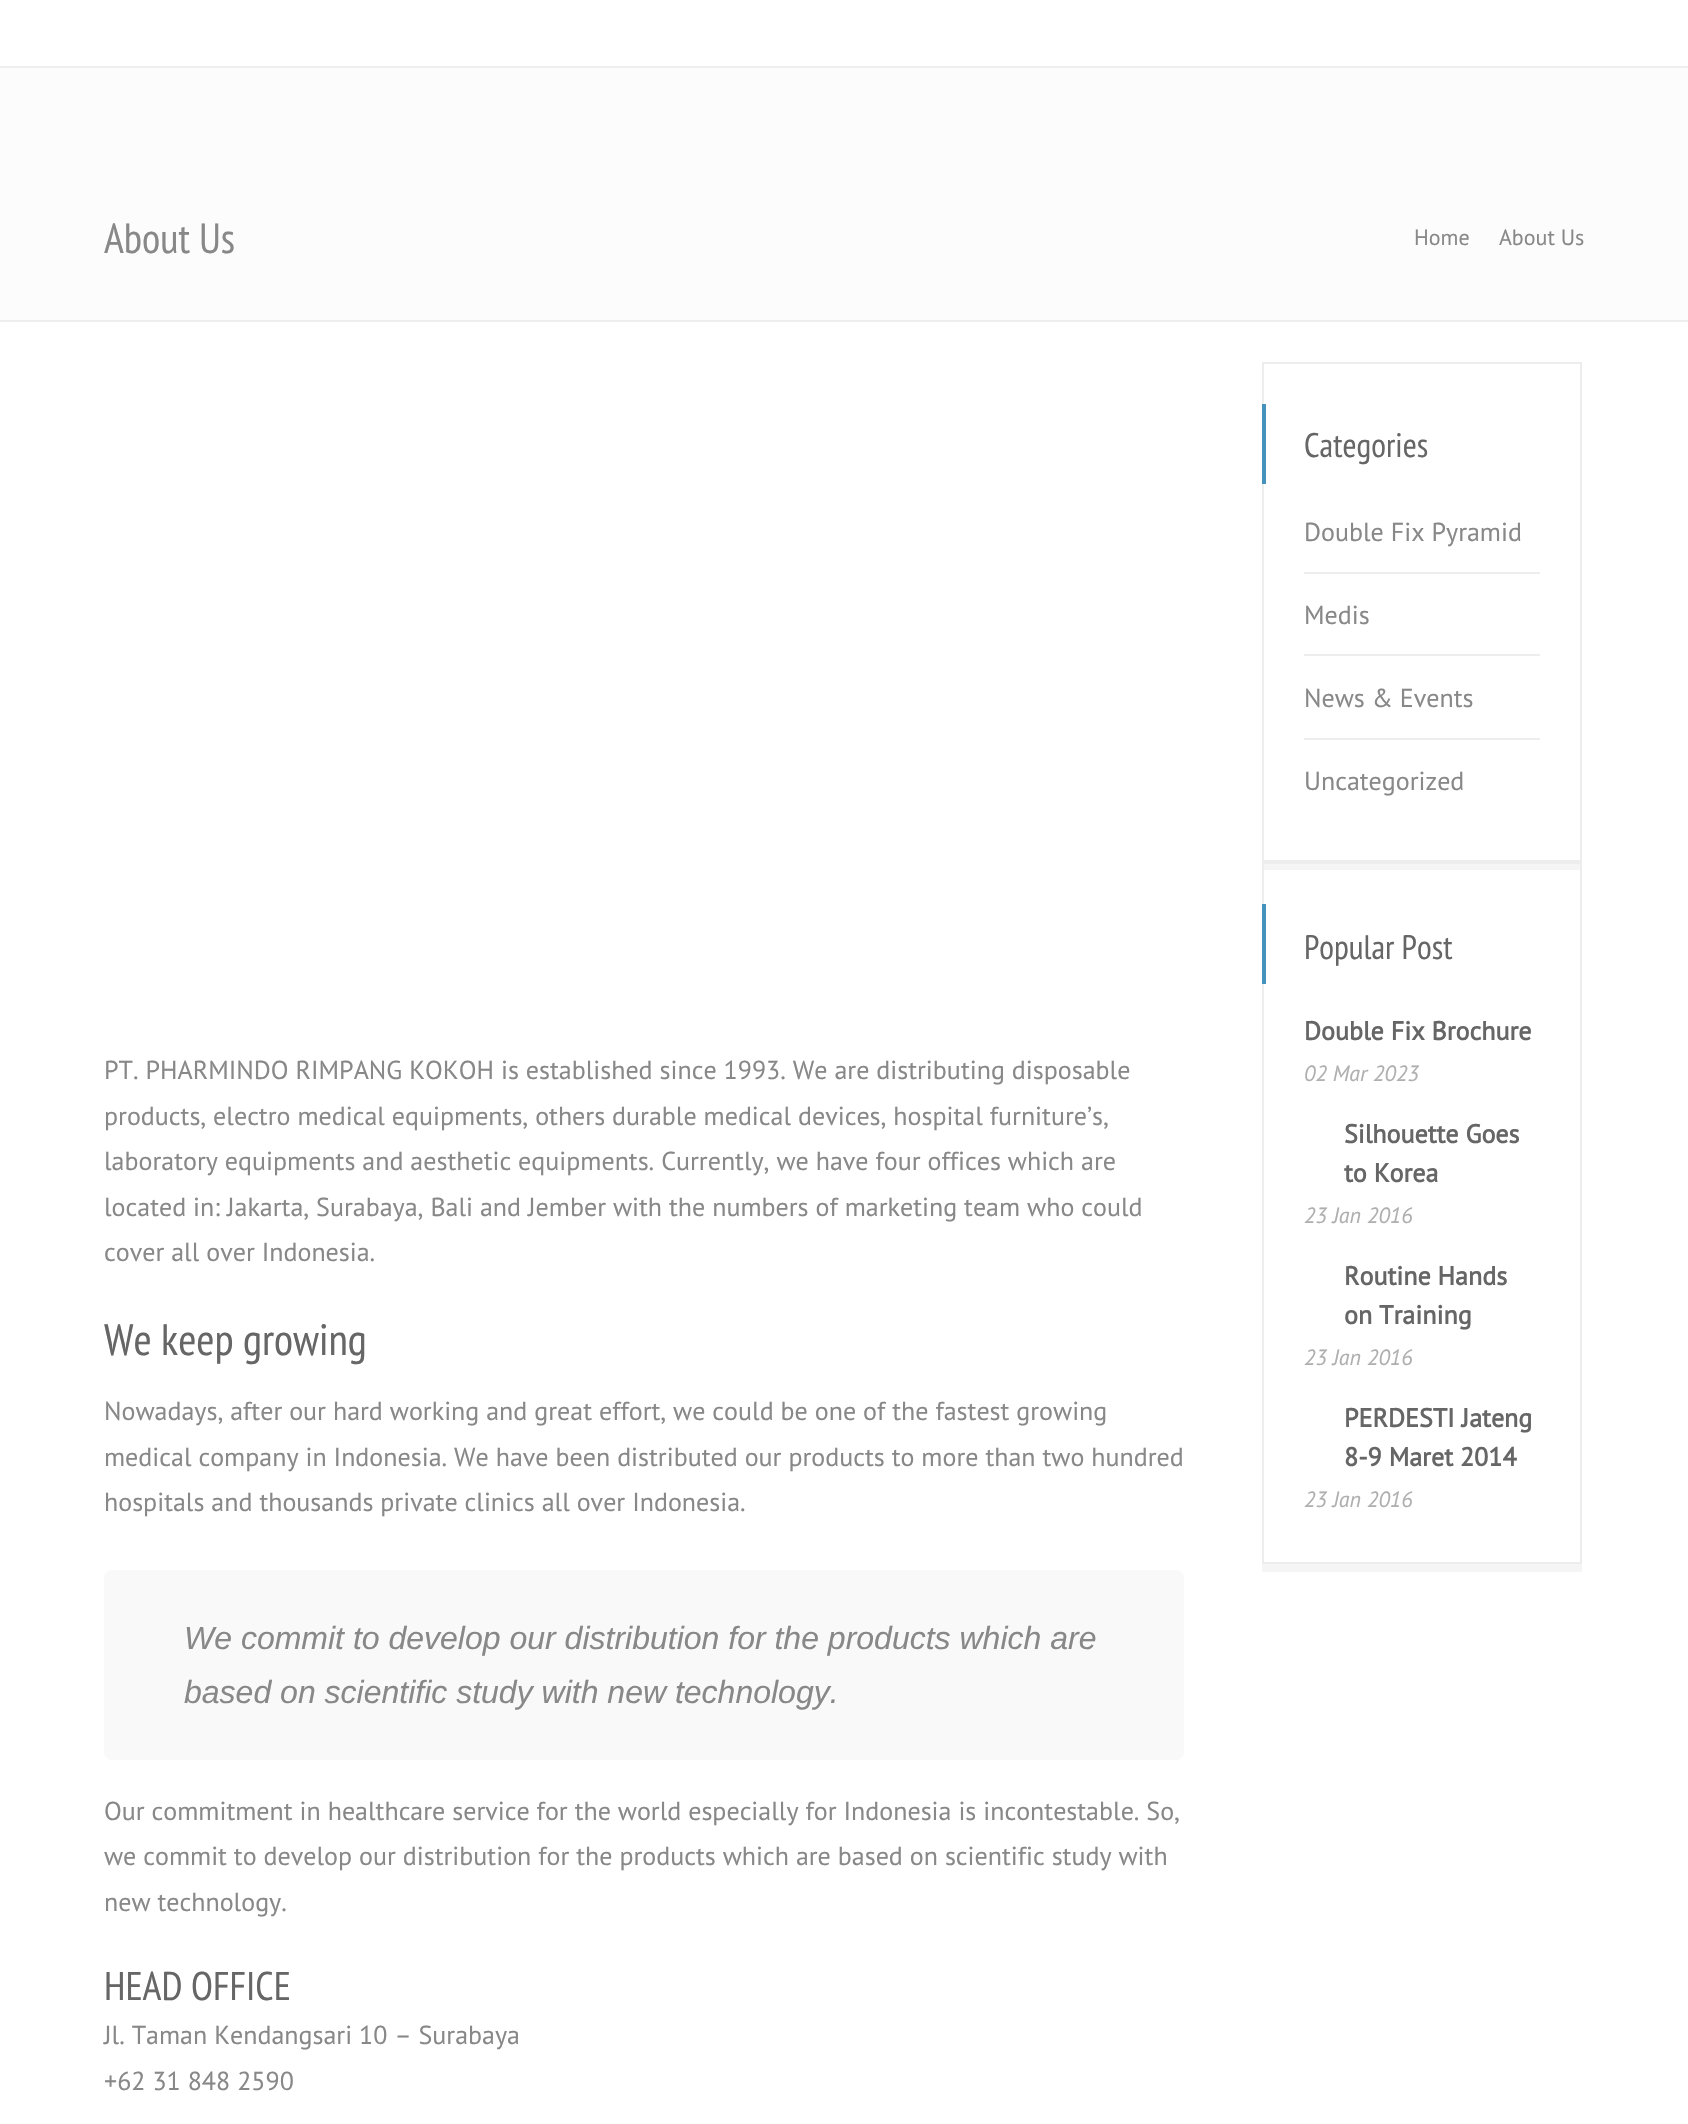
void draw(SkCanvas* canvas) {
    SkPaint paint;
    paint.setAntiAlias(true);
    auto face = [&](const char* family, int weight, float size, bool italic = false) {
        SkFontStyle style(weight, SkFontStyle::kNormal_Width,
            italic ? SkFontStyle::kItalic_Slant : SkFontStyle::kUpright_Slant);
        SkFont result(fontMgr->matchFamilyStyle(family, style), size);
        result.setSubpixel(true);
        return result;
    };
    auto write = [&](const char* s, float x, float y, const SkFont& font, SkColor color) {
        SkPaint ink(SkColor4f::FromColor(color));
        ink.setAntiAlias(true);
        canvas->drawString(s, x, y, font, ink);
    };
    auto block = [&](float x, float y, float w, float h, SkColor color) {
        SkPaint ink(SkColor4f::FromColor(color));
        ink.setAntiAlias(true);
        canvas->drawRect(SkRect::MakeXYWH(x, y, w, h), ink);
    };
    auto card = [&](float x, float y, float w, float h, float radius, SkColor color) {
        SkPaint ink(SkColor4f::FromColor(color));
        ink.setAntiAlias(true);
        canvas->drawRoundRect(SkRect::MakeXYWH(x, y, w, h), radius, radius, ink);
    };
    canvas->clear(SK_ColorWHITE);
    block(0, 68, 1688, 252, SkColorSetRGB(252, 252, 252));
    block(0, 66, 1688, 2, SkColorSetRGB(238, 238, 238));
    block(0, 320, 1688, 2, SkColorSetRGB(238, 238, 238));
    auto kFont1 = face("PT Sans Narrow", 400, 42);
    write("About Us", 104, 253, kFont1, SkColorSetRGB(136, 136, 136));
    auto kFont2 = face("PT Sans", 400, 22);
    write("Home", 1414, 245, kFont2, SkColorSetRGB(136, 136, 136));
    write("About Us", 1499, 245, kFont2, SkColorSetRGB(136, 136, 136));
    auto kFont3 = face("PT Sans", 400, 26);
    write("PT. PHARMINDO RIMPANG KOKOH is established since 1993. We are distributing disposable", 104, 1079, kFont3, SkColorSetRGB(136, 136, 136));
    write("products, electro medical equipments, others durable medical devices, hospital furniture’s,", 104, 1125, kFont3, SkColorSetRGB(136, 136, 136));
    write("laboratory equipments and aesthetic equipments. Currently, we have four offices which are", 104, 1170, kFont3, SkColorSetRGB(136, 136, 136));
    write("located in: Jakarta, Surabaya, Bali and Jember with the numbers of marketing team who could", 104, 1216, kFont3, SkColorSetRGB(136, 136, 136));
    write("cover all over Indonesia.", 104, 1261, kFont3, SkColorSetRGB(136, 136, 136));
    auto kFont4 = face("PT Sans Narrow", 400, 44);
    write("We keep growing", 104, 1355, kFont4, SkColorSetRGB(102, 102, 102));
    write("Nowadays, after our hard working and great effort, we could be one of the fastest growing", 104, 1420, kFont3, SkColorSetRGB(136, 136, 136));
    write("medical company in Indonesia. We have been distributed our products to more than two hundred", 104, 1466, kFont3, SkColorSetRGB(136, 136, 136));
    write("hospitals and thousands private clinics all over Indonesia.", 104, 1511, kFont3, SkColorSetRGB(136, 136, 136));
    card(104, 1570, 1080, 190, 8, SkColorSetRGB(249, 249, 249));
    auto kFont5 = face("Liberation Sans", 400, 32, true);
    write("We commit to develop our distribution for the products which are", 184, 1649, kFont5, SkColorSetRGB(136, 136, 136));
    write("based on scientific study with new technology.", 184, 1703, kFont5, SkColorSetRGB(136, 136, 136));
    write("Our commitment in healthcare service for the world especially for Indonesia is incontestable. So,", 104, 1820, kFont3, SkColorSetRGB(136, 136, 136));
    write("we commit to develop our distribution for the products which are based on scientific study with", 104, 1865, kFont3, SkColorSetRGB(136, 136, 136));
    write("new technology.", 104, 1911, kFont3, SkColorSetRGB(136, 136, 136));
    auto kFont6 = face("PT Sans Narrow", 400, 40);
    write("HEAD OFFICE", 104, 2000, kFont6, SkColorSetRGB(102, 102, 102));
    write("Jl. Taman Kendangsari 10 – Surabaya", 104, 2044, kFont3, SkColorSetRGB(136, 136, 136));
    write("+62 31 848 2590", 104, 2090, kFont3, SkColorSetRGB(136, 136, 136));
    block(1262, 864, 320, 6, SkColorSetRGB(245, 245, 245));
    paint.setStyle(SkPaint::kStroke_Style);
    paint.setStrokeWidth(2);
    paint.setColor(SkColorSetRGB(237, 237, 237));
    canvas->drawRect(SkRect::MakeXYWH(1263, 363, 318, 498), paint);
    block(1262, 404, 4, 80, SkColorSetRGB(69, 147, 188));
    auto kFont7 = face("PT Sans Narrow", 400, 34);
    write("Categories", 1304, 457, kFont7, SkColorSetRGB(102, 102, 102));
    block(1304, 572, 236, 2, SkColorSetRGB(237, 237, 237));
    write("Double Fix Pyramid", 1304, 541, kFont3, SkColorSetRGB(136, 136, 136));
    block(1304, 654, 236, 2, SkColorSetRGB(237, 237, 237));
    write("Medis", 1304, 624, kFont3, SkColorSetRGB(136, 136, 136));
    block(1304, 738, 236, 2, SkColorSetRGB(237, 237, 237));
    write("News & Events", 1304, 707, kFont3, SkColorSetRGB(136, 136, 136));
    write("Uncategorized", 1304, 790, kFont3, SkColorSetRGB(136, 136, 136));
    block(1262, 1564, 320, 8, SkColorSetRGB(245, 245, 245));
    canvas->drawRect(SkRect::MakeXYWH(1263, 863, 318, 700), paint);
    block(1262, 904, 4, 80, SkColorSetRGB(69, 147, 188));
    write("Popular Post", 1304, 959, kFont7, SkColorSetRGB(102, 102, 102));
    auto kFont8 = face("PT Sans", 700, 26);
    write("Double Fix Brochure", 1304, 1040, kFont8, SkColorSetRGB(102, 102, 102));
    auto kFont9 = face("PT Sans", 400, 22, true);
    write("02 Mar 2023", 1304, 1081, kFont9, SkColorSetRGB(175, 175, 175));
    write("Silhouette Goes", 1344, 1143, kFont8, SkColorSetRGB(102, 102, 102));
    write("to Korea", 1344, 1182, kFont8, SkColorSetRGB(102, 102, 102));
    write("23 Jan 2016", 1304, 1223, kFont9, SkColorSetRGB(175, 175, 175));
    write("Routine Hands", 1344, 1285, kFont8, SkColorSetRGB(102, 102, 102));
    write("on Training", 1344, 1324, kFont8, SkColorSetRGB(102, 102, 102));
    write("23 Jan 2016", 1304, 1365, kFont9, SkColorSetRGB(175, 175, 175));
    write("PERDESTI Jateng", 1344, 1427, kFont8, SkColorSetRGB(102, 102, 102));
    write("8-9 Maret 2014", 1344, 1466, kFont8, SkColorSetRGB(102, 102, 102));
    write("23 Jan 2016", 1304, 1507, kFont9, SkColorSetRGB(175, 175, 175));
}
